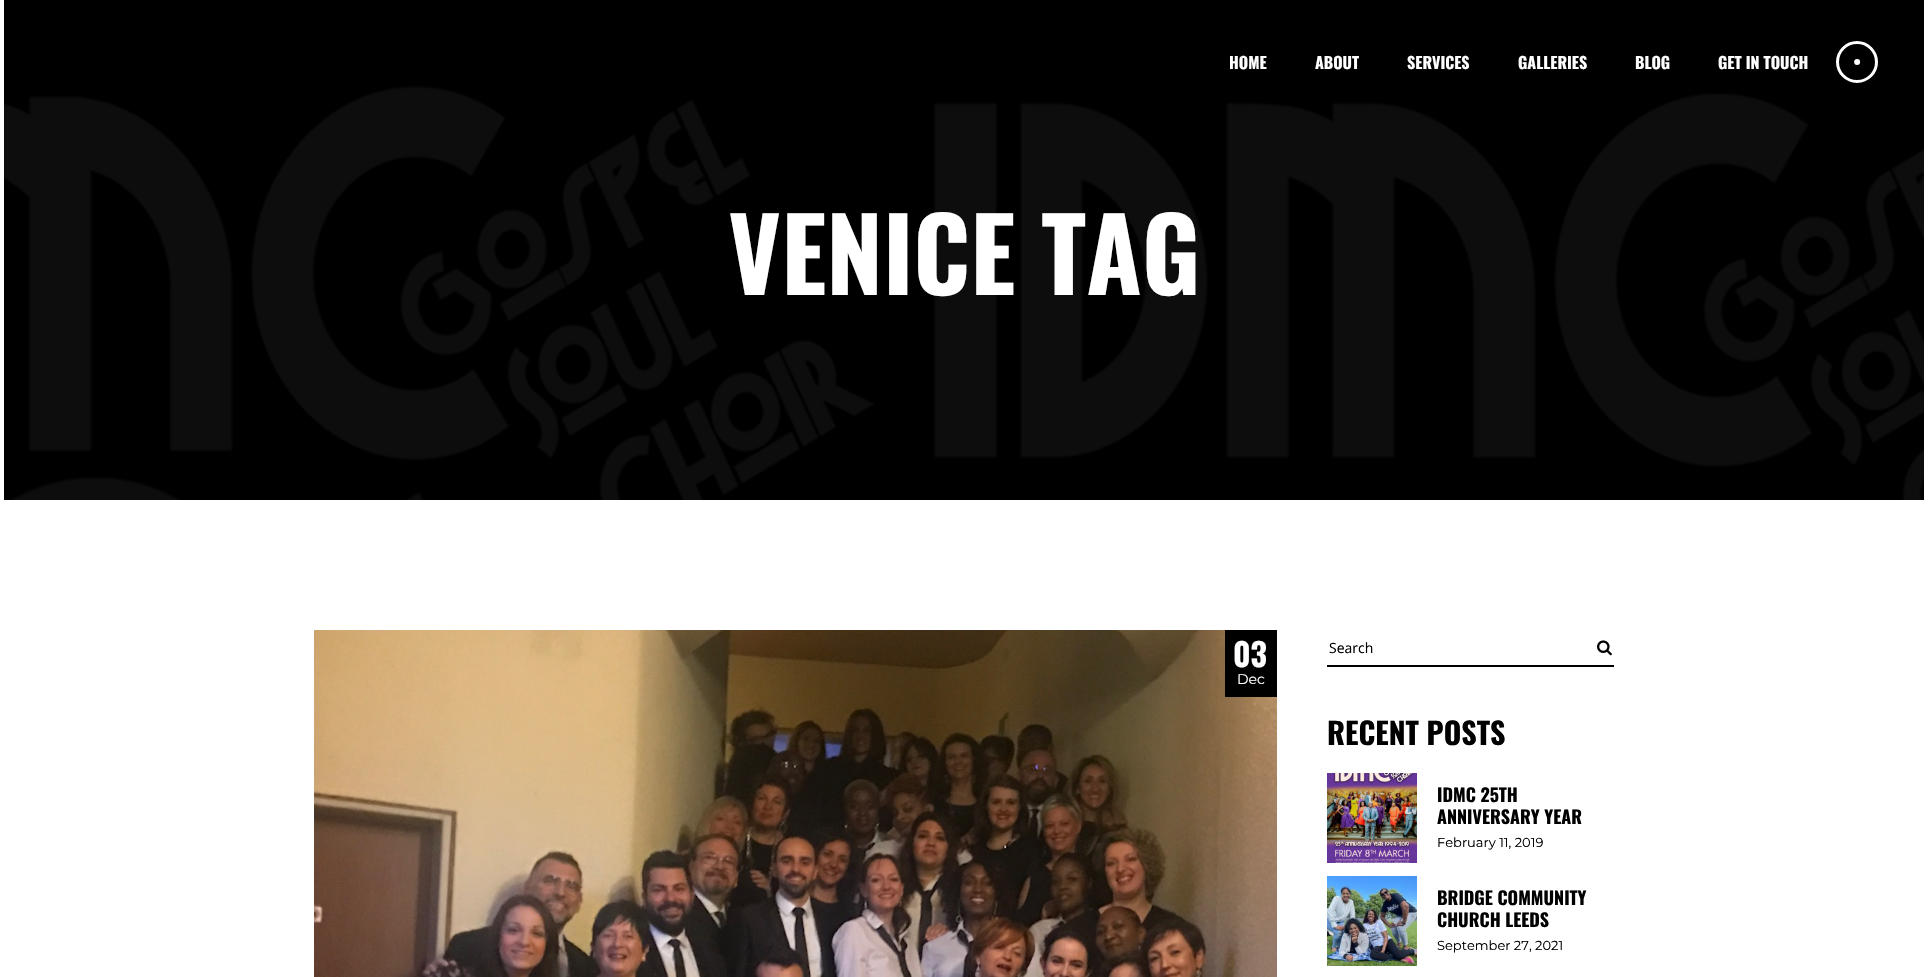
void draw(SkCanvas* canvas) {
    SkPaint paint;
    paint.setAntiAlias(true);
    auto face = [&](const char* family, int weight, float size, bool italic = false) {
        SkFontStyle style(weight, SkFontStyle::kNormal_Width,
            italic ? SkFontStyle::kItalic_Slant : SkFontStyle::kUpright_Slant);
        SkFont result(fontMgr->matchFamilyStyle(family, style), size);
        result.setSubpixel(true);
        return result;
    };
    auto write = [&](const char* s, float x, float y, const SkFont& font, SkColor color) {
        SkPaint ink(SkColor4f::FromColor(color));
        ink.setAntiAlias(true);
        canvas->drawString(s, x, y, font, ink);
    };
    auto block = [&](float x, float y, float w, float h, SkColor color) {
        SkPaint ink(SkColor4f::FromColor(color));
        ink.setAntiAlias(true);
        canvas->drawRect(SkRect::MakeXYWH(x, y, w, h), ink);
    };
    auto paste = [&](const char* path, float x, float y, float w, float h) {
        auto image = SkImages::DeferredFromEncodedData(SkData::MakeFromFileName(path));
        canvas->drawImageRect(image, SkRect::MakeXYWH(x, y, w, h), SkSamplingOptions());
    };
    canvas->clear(SK_ColorWHITE);
    paste("pic1.png", 4, 0, 1920, 500);
    auto kFont1 = face("Oswald", 700, 16);
    write("HOME", 1229, 69, kFont1, SK_ColorWHITE);
    write("ABOUT", 1315, 69, kFont1, SK_ColorWHITE);
    write("SERVICES", 1407, 69, kFont1, SK_ColorWHITE);
    write("GALLERIES", 1518, 69, kFont1, SK_ColorWHITE);
    write("BLOG", 1635, 69, kFont1, SK_ColorWHITE);
    write("GET IN TOUCH", 1718, 69, kFont1, SK_ColorWHITE);
    paint.setStyle(SkPaint::kStroke_Style);
    paint.setStrokeWidth(3);
    paint.setColor(SK_ColorWHITE);
    canvas->drawCircle(1857, 62, 19.5f, paint);
    paint.setStyle(SkPaint::kFill_Style);
    canvas->drawCircle(1857.1f, 62.1f, 3, paint);
    auto kFont2 = face("Oswald", 700, 101);
    write("VENICE TAG", 728, 295, kFont2, SK_ColorWHITE);
    paste("pic2.png", 314, 630, 963, 347);
    block(1225, 630, 52, 67, SK_ColorBLACK);
    auto kFont3 = face("Oswald", 700, 32);
    write("03", 1233, 667, kFont3, SK_ColorWHITE);
    auto kFont4 = face("Montserrat", 400, 14);
    write("Dec", 1237, 684, kFont4, SK_ColorWHITE);
    block(1327, 665, 287, 2, SK_ColorBLACK);
    auto kFont5 = face("Open Sans", 400, 14);
    write("Search", 1329, 653, kFont5, SK_ColorBLACK);
    paste("pic3.png", 1597, 640, 15, 16);
    auto kFont6 = face("Oswald", 700, 30);
    write("RECENT POSTS", 1327, 745, kFont6, SK_ColorBLACK);
    paste("pic4.png", 1327, 773, 90, 90);
    auto kFont7 = face("Oswald", 700, 18);
    write("IDMC 25TH", 1437, 802, kFont7, SK_ColorBLACK);
    write("ANNIVERSARY YEAR", 1437, 824, kFont7, SK_ColorBLACK);
    auto kFont8 = face("Montserrat", 400, 13);
    write("February 11, 2019", 1437, 847, kFont8, SK_ColorBLACK);
    paste("pic5.png", 1327, 876, 90, 90);
    write("BRIDGE COMMUNITY", 1437, 905, kFont7, SK_ColorBLACK);
    write("CHURCH LEEDS", 1437, 927, kFont7, SK_ColorBLACK);
    write("September 27, 2021", 1437, 950, kFont8, SK_ColorBLACK);
}
